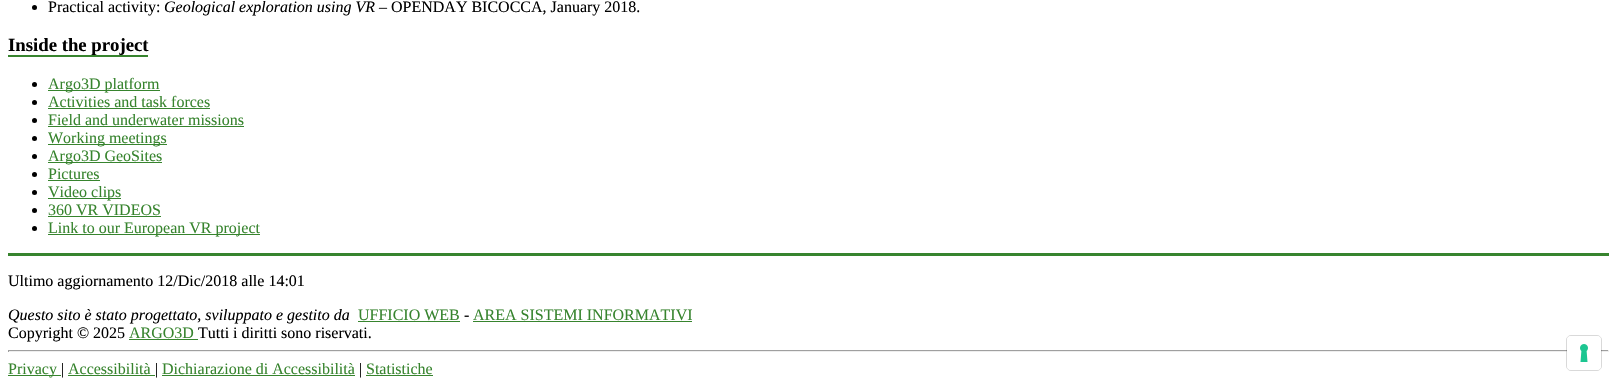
void draw(SkCanvas* canvas) {
    SkPaint paint;
    paint.setAntiAlias(true);
    auto face = [&](const char* family, int weight, float size, bool italic = false) {
        SkFontStyle style(weight, SkFontStyle::kNormal_Width,
            italic ? SkFontStyle::kItalic_Slant : SkFontStyle::kUpright_Slant);
        SkFont result(fontMgr->matchFamilyStyle(family, style), size);
        result.setSubpixel(true);
        return result;
    };
    auto write = [&](const char* s, float x, float y, const SkFont& font, SkColor color) {
        SkPaint ink(SkColor4f::FromColor(color));
        ink.setAntiAlias(true);
        canvas->drawString(s, x, y, font, ink);
    };
    auto block = [&](float x, float y, float w, float h, SkColor color) {
        SkPaint ink(SkColor4f::FromColor(color));
        ink.setAntiAlias(true);
        canvas->drawRect(SkRect::MakeXYWH(x, y, w, h), ink);
    };
    auto card = [&](float x, float y, float w, float h, float radius, SkColor color) {
        SkPaint ink(SkColor4f::FromColor(color));
        ink.setAntiAlias(true);
        canvas->drawRoundRect(SkRect::MakeXYWH(x, y, w, h), radius, radius, ink);
    };
    auto paste = [&](const char* path, float x, float y, float w, float h) {
        auto image = SkImages::DeferredFromEncodedData(SkData::MakeFromFileName(path));
        canvas->drawImageRect(image, SkRect::MakeXYWH(x, y, w, h), SkSamplingOptions());
    };
    canvas->clear(SK_ColorWHITE);
    paint.setColor(SK_ColorBLACK);
    canvas->drawCircle(34.5f, 7.5f, 2.5f, paint);
    auto kFont1 = face("Liberation Serif", 400, 16);
    write("Practical activity:", 48, 12, kFont1, SK_ColorBLACK);
    auto kFont2 = face("Liberation Serif", 400, 16, true);
    write("Geological exploration using VR –", 164, 12, kFont2, SK_ColorBLACK);
    write("OPENDAY BICOCCA, January 2018.", 391, 12, kFont1, SK_ColorBLACK);
    auto kFont3 = face("Liberation Serif", 700, 18.75f);
    write("Inside the project", 8, 51, kFont3, SK_ColorBLACK);
    block(8, 55, 140, 2, SkColorSetRGB(55, 132, 46));
    canvas->drawCircle(34.5f, 84.5f, 2.5f, paint);
    block(48, 90, 112, 1, SkColorSetRGB(55, 132, 46));
    write("Argo3D platform", 48, 89, kFont1, SkColorSetRGB(55, 132, 46));
    canvas->drawCircle(34.5f, 102.5f, 2.5f, paint);
    write("Activities and task forces", 48, 107, kFont1, SkColorSetRGB(55, 132, 46));
    block(48, 108, 162, 1, SkColorSetRGB(55, 132, 46));
    canvas->drawCircle(34.5f, 120.5f, 2.5f, paint);
    write("Field and underwater missions", 48, 125, kFont1, SkColorSetRGB(55, 132, 46));
    block(48, 126, 196, 1, SkColorSetRGB(55, 132, 46));
    canvas->drawCircle(34.5f, 138.5f, 2.5f, paint);
    block(48, 144, 119, 1, SkColorSetRGB(55, 132, 46));
    write("Working meetings", 48, 143, kFont1, SkColorSetRGB(55, 132, 46));
    canvas->drawCircle(34.5f, 156.5f, 2.5f, paint);
    block(48, 162, 114, 1, SkColorSetRGB(55, 132, 46));
    write("Argo3D GeoSites", 48, 161, kFont1, SkColorSetRGB(55, 132, 46));
    canvas->drawCircle(34.5f, 174.5f, 2.5f, paint);
    write("Pictures", 48, 179, kFont1, SkColorSetRGB(55, 132, 46));
    block(48, 180, 52, 1, SkColorSetRGB(55, 132, 46));
    canvas->drawCircle(34.5f, 192.5f, 2.5f, paint);
    block(48, 198, 73, 1, SkColorSetRGB(55, 132, 46));
    write("Video clips", 48, 197, kFont1, SkColorSetRGB(55, 132, 46));
    canvas->drawCircle(34.5f, 210.5f, 2.5f, paint);
    write("360 VR VIDEOS", 48, 215, kFont1, SkColorSetRGB(55, 132, 46));
    block(48, 216, 113, 1, SkColorSetRGB(55, 132, 46));
    canvas->drawCircle(34.5f, 228.5f, 2.5f, paint);
    block(48, 234, 212, 1, SkColorSetRGB(55, 132, 46));
    write("Link to our European VR project", 48, 233, kFont1, SkColorSetRGB(55, 132, 46));
    block(8, 253, 1601, 3, SkColorSetRGB(55, 132, 46));
    write("Ultimo aggiornamento 12/Dic/2018 alle 14:01", 8, 286, kFont1, SK_ColorBLACK);
    write("Questo sito è stato progettato, sviluppato e gestito da", 8, 320, kFont2, SK_ColorBLACK);
    write("UFFICIO WEB", 358, 320, kFont1, SkColorSetRGB(55, 132, 46));
    block(358, 321, 102, 1, SkColorSetRGB(55, 132, 46));
    write("-", 464, 320, kFont1, SK_ColorBLACK);
    write("AREA SISTEMI INFORMATIVI", 473, 320, kFont1, SkColorSetRGB(55, 132, 46));
    block(473, 321, 219, 1, SkColorSetRGB(55, 132, 46));
    write("Copyright © 2025", 8, 338, kFont1, SK_ColorBLACK);
    write("ARGO3D", 129, 338, kFont1, SkColorSetRGB(55, 132, 46));
    block(129, 339, 69, 1, SkColorSetRGB(55, 132, 46));
    write("Tutti i diritti sono riservati.", 198, 338, kFont1, SK_ColorBLACK);
    block(8, 350, 1601, 1, SkColorSetRGB(159, 159, 159));
    block(1608, 350, 1, 2, SkColorSetRGB(238, 238, 238));
    block(8, 351, 1601, 1, SkColorSetRGB(238, 238, 238));
    block(8, 350, 1, 2, SkColorSetRGB(159, 159, 159));
    block(8, 375, 53, 1, SkColorSetRGB(55, 132, 46));
    write("Privacy", 8, 374, kFont1, SkColorSetRGB(55, 132, 46));
    write("|", 61, 374, kFont1, SK_ColorBLACK);
    write("Accessibilità", 68, 374, kFont1, SkColorSetRGB(55, 132, 46));
    block(68, 375, 87, 1, SkColorSetRGB(55, 132, 46));
    write("|", 155, 374, kFont1, SK_ColorBLACK);
    write("Dichiarazione di Accessibilità", 162, 374, kFont1, SkColorSetRGB(55, 132, 46));
    block(162, 375, 193, 1, SkColorSetRGB(55, 132, 46));
    write("|", 359, 374, kFont1, SK_ColorBLACK);
    write("Statistiche", 366, 374, kFont1, SkColorSetRGB(55, 132, 46));
    block(366, 375, 67, 1, SkColorSetRGB(55, 132, 46));
    paint.setStyle(SkPaint::kStroke_Style);
    paint.setStrokeWidth(1);
    paint.setColor(SkColorSetARGB(38, 0, 0, 0));
    canvas->drawRoundRect(SkRect::MakeXYWH(1566.5f, 335.5f, 35, 35), 4.5f, 4.5f, paint);
    card(1567, 336, 34, 34, 4, SK_ColorWHITE);
    paste("pic1.png", 1580, 344, 8, 18);
}
